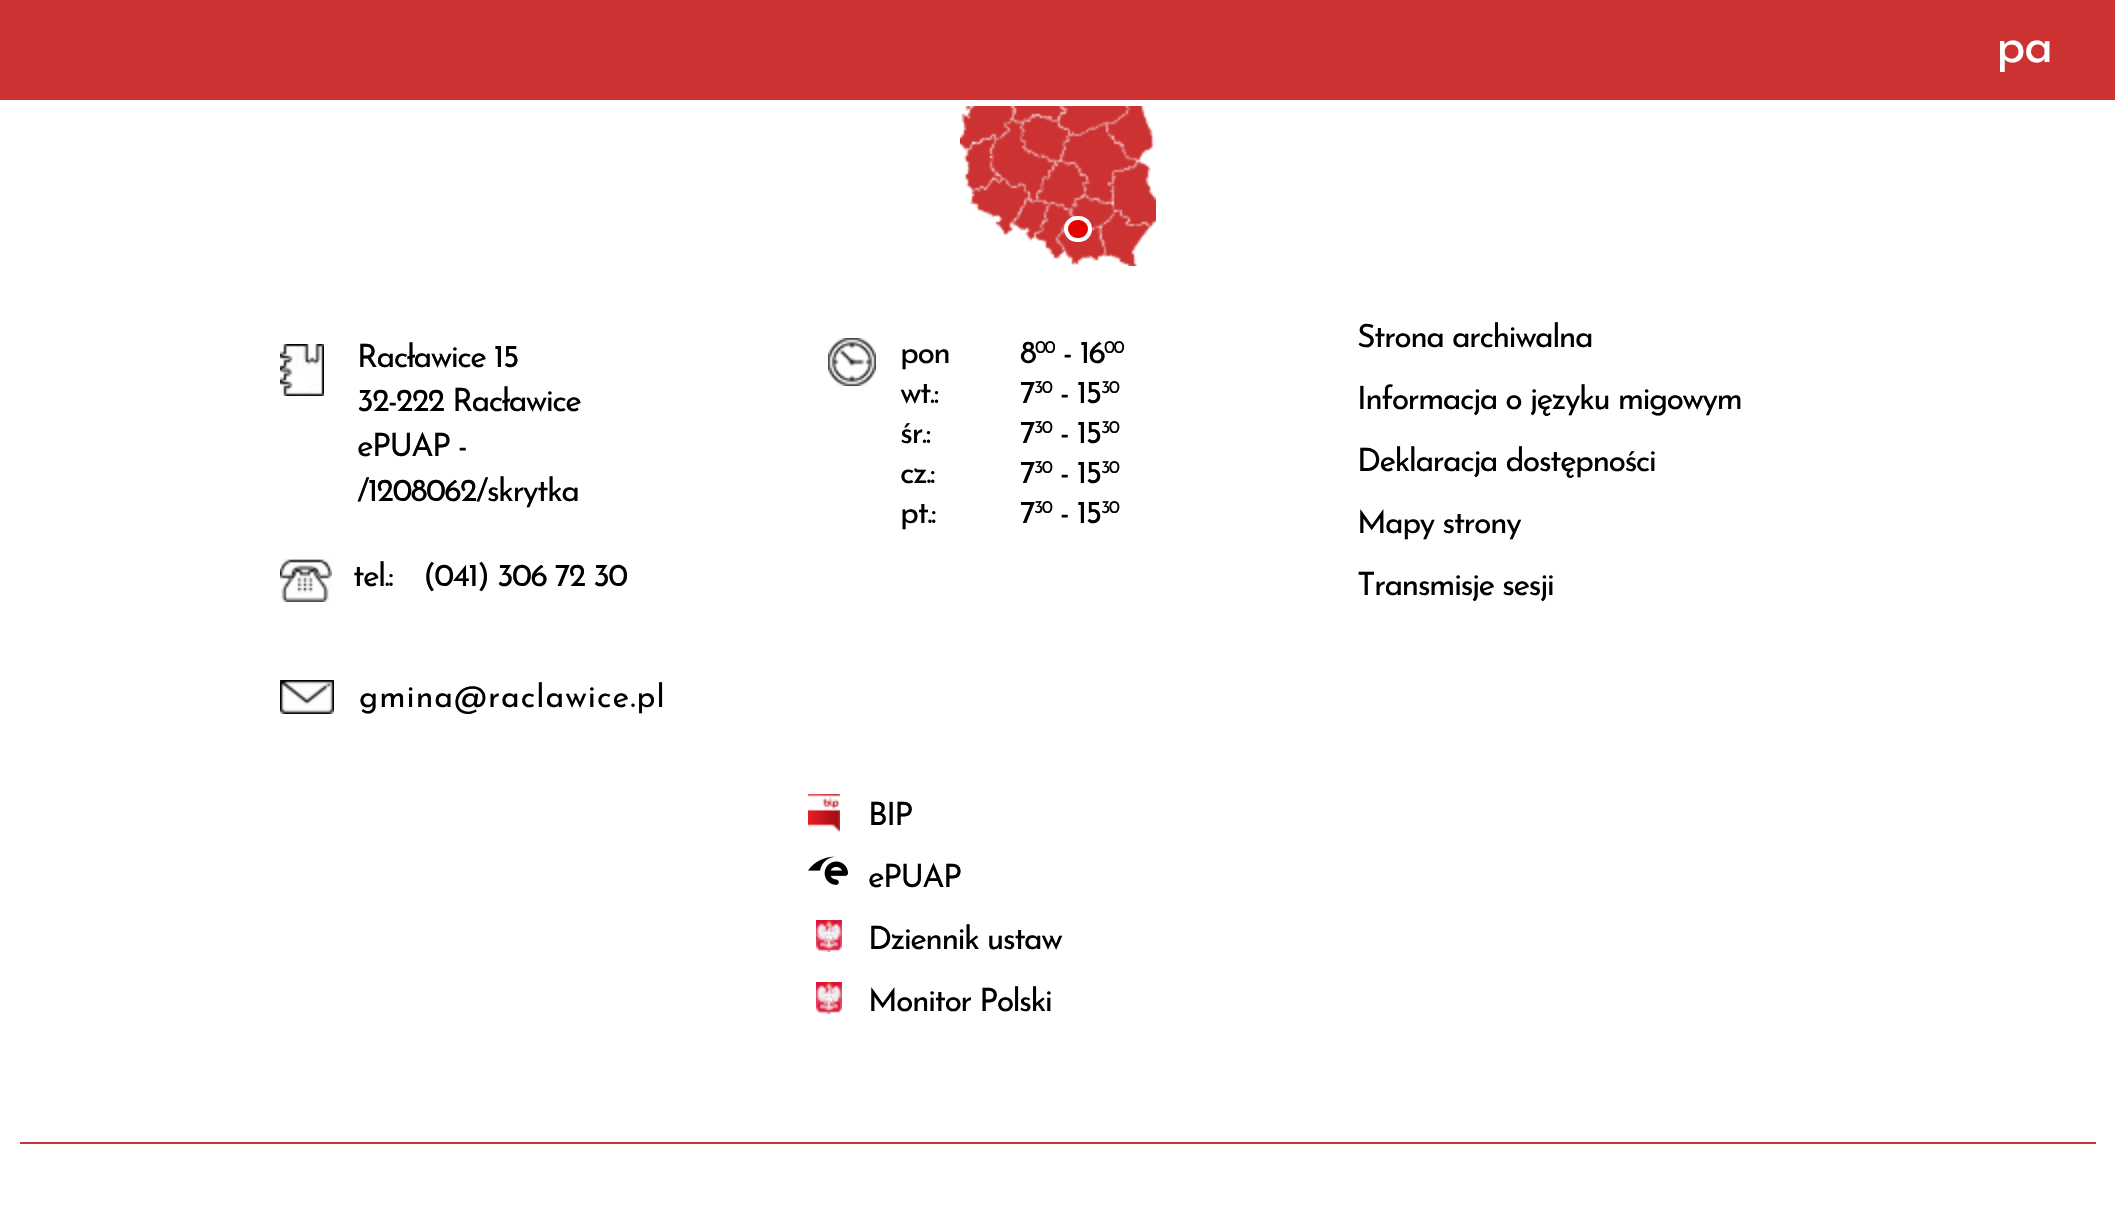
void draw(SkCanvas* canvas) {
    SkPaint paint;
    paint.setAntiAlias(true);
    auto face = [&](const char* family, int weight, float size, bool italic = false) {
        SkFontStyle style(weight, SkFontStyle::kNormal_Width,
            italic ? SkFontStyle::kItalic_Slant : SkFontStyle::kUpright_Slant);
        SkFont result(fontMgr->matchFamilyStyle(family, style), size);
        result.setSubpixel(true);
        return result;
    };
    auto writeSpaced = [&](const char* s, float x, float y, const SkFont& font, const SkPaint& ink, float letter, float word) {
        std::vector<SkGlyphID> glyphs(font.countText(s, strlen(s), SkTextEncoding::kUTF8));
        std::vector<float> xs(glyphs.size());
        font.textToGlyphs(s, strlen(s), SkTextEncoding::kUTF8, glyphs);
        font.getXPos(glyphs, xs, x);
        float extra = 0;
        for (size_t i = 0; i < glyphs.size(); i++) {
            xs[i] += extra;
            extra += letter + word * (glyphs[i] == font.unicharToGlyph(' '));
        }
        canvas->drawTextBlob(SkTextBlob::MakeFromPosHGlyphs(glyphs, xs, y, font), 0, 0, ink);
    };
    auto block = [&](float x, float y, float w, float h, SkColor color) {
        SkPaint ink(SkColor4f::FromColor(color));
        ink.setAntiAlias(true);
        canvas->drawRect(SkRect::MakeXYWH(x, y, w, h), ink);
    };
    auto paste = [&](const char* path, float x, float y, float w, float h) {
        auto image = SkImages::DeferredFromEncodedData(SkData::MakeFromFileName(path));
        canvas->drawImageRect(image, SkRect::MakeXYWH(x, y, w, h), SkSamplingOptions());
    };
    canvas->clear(SK_ColorWHITE);
    block(0, 0, 2115, 100, SkColorSetRGB(204, 50, 50));
    auto kFont1 = face("Josefin Sans", 400, 50);
    paint.setColor(SK_ColorWHITE);
    writeSpaced("pa", 1996, 62, kFont1, paint, -1.6f, 0);
    block(20, 1142, 2076, 2, SkColorSetRGB(204, 50, 50));
    block(960, 106, 196, 160, SkColorSetRGB(204, 50, 50));
    paste("pic1.png", 960, 106, 196, 160);
    paint.setColor(SkColorSetRGB(229, 2, 3));
    canvas->drawRoundRect(SkRect::MakeXYWH(1066, 218, 24, 22), 11, 11, paint);
    paint.setStyle(SkPaint::kStroke_Style);
    paint.setStrokeWidth(4);
    paint.setColor(SK_ColorWHITE);
    canvas->drawRoundRect(SkRect::MakeXYWH(1066, 218, 24, 22), 11, 11, paint);
    paste("pic2.png", 280, 344, 44, 52);
    auto kFont2 = face("Josefin Sans", 400, 32);
    paint.setStyle(SkPaint::kFill_Style);
    paint.setColor(SK_ColorBLACK);
    writeSpaced("Racławice 15", 357, 367, kFont2, paint, -1.6f, 0);
    writeSpaced("32-222 Racławice", 357, 411, kFont2, paint, -1.6f, 0);
    writeSpaced("ePUAP -", 357, 456, kFont2, paint, -1.6f, 0);
    writeSpaced("/1208062/skrytka", 357, 501, kFont2, paint, -1.6f, 0);
    paste("pic3.png", 280, 558, 52, 44);
    writeSpaced("tel.:", 353, 586, kFont2, paint, -1.6f, 0);
    writeSpaced("(041) 306 72 30", 423, 586, kFont2, paint, -1.6f, 0);
    paste("pic4.png", 280, 680, 54, 34);
    writeSpaced("gmina@raclawice.pl", 359, 707, kFont2, paint, 1, 0);
    paste("pic5.png", 828, 338, 48, 48);
    writeSpaced("8", 1020, 363, kFont2, paint, -1.6f, 0);
    auto kFont3 = face("Josefin Sans", 400, 18);
    writeSpaced("00", 1035, 353, kFont3, paint, -1.6f, 0);
    writeSpaced("- 16", 1063, 363, kFont2, paint, -1.6f, 0);
    writeSpaced("00", 1104, 353, kFont3, paint, -1.6f, 0);
    writeSpaced("pon", 900, 363, kFont2, paint, -1.6f, 0);
    writeSpaced("wt.:", 900, 403, kFont2, paint, -1.6f, 0);
    writeSpaced("7", 1020, 403, kFont2, paint, -1.6f, 0);
    writeSpaced("30", 1034, 393, kFont3, paint, -1.6f, 0);
    writeSpaced("- 15", 1060, 403, kFont2, paint, -1.6f, 0);
    writeSpaced("30", 1101, 393, kFont3, paint, -1.6f, 0);
    writeSpaced("śr.:", 900, 443, kFont2, paint, -1.6f, 0);
    writeSpaced("7", 1020, 443, kFont2, paint, -1.6f, 0);
    writeSpaced("30", 1034, 433, kFont3, paint, -1.6f, 0);
    writeSpaced("- 15", 1060, 443, kFont2, paint, -1.6f, 0);
    writeSpaced("30", 1101, 433, kFont3, paint, -1.6f, 0);
    writeSpaced("cz.:", 900, 483, kFont2, paint, -1.6f, 0);
    writeSpaced("7", 1020, 483, kFont2, paint, -1.6f, 0);
    writeSpaced("30", 1034, 473, kFont3, paint, -1.6f, 0);
    writeSpaced("- 15", 1060, 483, kFont2, paint, -1.6f, 0);
    writeSpaced("30", 1101, 473, kFont3, paint, -1.6f, 0);
    writeSpaced("pt.:", 900, 523, kFont2, paint, -1.6f, 0);
    writeSpaced("7", 1020, 523, kFont2, paint, -1.6f, 0);
    writeSpaced("30", 1034, 513, kFont3, paint, -1.6f, 0);
    writeSpaced("- 15", 1060, 523, kFont2, paint, -1.6f, 0);
    writeSpaced("30", 1101, 513, kFont3, paint, -1.6f, 0);
    writeSpaced("Strona archiwalna", 1357, 347, kFont2, paint, -1.6f, 0);
    writeSpaced("Informacja o języku migowym", 1357, 409, kFont2, paint, -1.6f, 0);
    writeSpaced("Deklaracja dostępności", 1357, 471, kFont2, paint, -1.6f, 0);
    writeSpaced("Mapy strony", 1357, 533, kFont2, paint, -1.6f, 0);
    writeSpaced("Transmisje sesji", 1357, 595, kFont2, paint, -1.6f, 0);
    paste("pic6.png", 808, 794, 32, 38);
    writeSpaced("BIP", 868, 825, kFont2, paint, -1.6f, 0);
    paste("pic7.png", 808, 856, 40, 29);
    writeSpaced("ePUAP", 868, 887, kFont2, paint, -1.6f, 0);
    paste("pic8.png", 816, 920, 26, 32);
    writeSpaced("Dziennik ustaw", 868, 949, kFont2, paint, -1.6f, 0);
    paste("pic8.png", 816, 982, 26, 32);
    writeSpaced("Monitor Polski", 868, 1011, kFont2, paint, -1.6f, 0);
}
